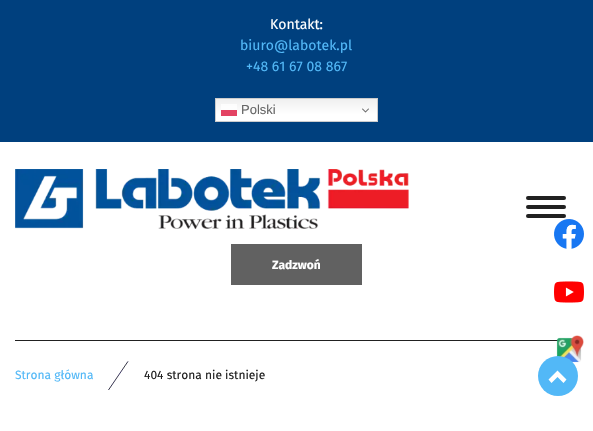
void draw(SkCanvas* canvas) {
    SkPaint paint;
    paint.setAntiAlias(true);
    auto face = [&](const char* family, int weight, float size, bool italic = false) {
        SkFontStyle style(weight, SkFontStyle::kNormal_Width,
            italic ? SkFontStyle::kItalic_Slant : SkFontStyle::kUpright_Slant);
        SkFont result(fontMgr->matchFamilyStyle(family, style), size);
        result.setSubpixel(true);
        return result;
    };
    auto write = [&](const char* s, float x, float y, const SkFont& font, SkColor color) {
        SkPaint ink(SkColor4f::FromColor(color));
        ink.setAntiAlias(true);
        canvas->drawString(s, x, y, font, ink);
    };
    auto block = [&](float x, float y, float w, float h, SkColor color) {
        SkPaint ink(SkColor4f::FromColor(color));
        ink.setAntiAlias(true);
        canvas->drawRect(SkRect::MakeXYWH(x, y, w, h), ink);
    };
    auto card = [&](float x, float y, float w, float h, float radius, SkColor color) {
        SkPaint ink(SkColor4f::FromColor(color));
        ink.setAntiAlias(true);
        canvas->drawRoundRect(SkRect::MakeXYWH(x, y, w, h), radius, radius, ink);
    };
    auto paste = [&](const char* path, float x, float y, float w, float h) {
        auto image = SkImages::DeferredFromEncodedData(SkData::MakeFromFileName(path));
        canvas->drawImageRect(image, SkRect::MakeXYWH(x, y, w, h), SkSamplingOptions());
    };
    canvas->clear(SK_ColorWHITE);
    block(0, 0, 593, 142, SkColorSetRGB(0, 64, 126));
    auto kFont1 = face("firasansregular", 400, 14);
    write("Kontakt:", 270, 29, kFont1, SK_ColorWHITE);
    write("biuro@labotek.pl", 240, 50, kFont1, SkColorSetRGB(82, 184, 247));
    write("+48 61 67 08 867", 246, 71, kFont1, SkColorSetRGB(82, 184, 247));
    {
        const SkColor colors[] = {SkColorSetRGB(239, 239, 239), SK_ColorWHITE};
        const float stops[] = {0, 0.7f};
        const SkPoint ends[] = {{297, 98}, {297, 122}};
        paint.setShader(SkGradientShader::MakeLinear(ends, colors, stops, 2, SkTileMode::kClamp));
        paint.setAlpha(255);
    }
    canvas->drawRect(SkRect::MakeXYWH(216, 99, 161, 22), paint);
    {
        const SkColor colors[] = {SkColorSetRGB(252, 252, 252), SK_ColorWHITE};
        const float stops[] = {0, 0.7f};
        const SkPoint ends[] = {{297, 98}, {297, 122}};
        paint.setShader(SkGradientShader::MakeLinear(ends, colors, stops, 2, SkTileMode::kClamp));
        paint.setAlpha(255);
    }
    canvas->drawRect(SkRect::MakeXYWH(221, 104, 16, 6), paint);
    paint.setStyle(SkPaint::kStroke_Style);
    paint.setStrokeWidth(1);
    paint.setShader(nullptr);
    paint.setColor(SkColorSetRGB(204, 204, 204));
    canvas->drawRect(SkRect::MakeXYWH(215.5f, 98.5f, 162, 23), paint);
    block(221, 110, 16, 6, SkColorSetRGB(227, 67, 99));
    auto kFont2 = face("Liberation Sans", 400, 13);
    write("Polski", 241, 114, kFont2, SkColorSetRGB(102, 102, 102));
    paste("pic1.png", 362, 108, 7, 5);
    paste("pic2.png", 15, 169, 394, 60);
    card(526, 196, 40, 4, 2, SkColorSetRGB(33, 33, 33));
    card(526, 205, 40, 4, 2, SkColorSetRGB(33, 33, 33));
    card(526, 214, 40, 4, 2, SkColorSetRGB(33, 33, 33));
    block(231, 244, 131, 41, SkColorSetRGB(97, 97, 97));
    auto kFont3 = face("Fira Sans", 700, 12);
    write("Zadzwoń", 272, 269, kFont3, SK_ColorWHITE);
    block(15, 340, 543, 1, SkColorSetRGB(33, 33, 33));
    auto kFont4 = face("firasansregular", 400, 12);
    write("Strona główna", 15, 379, kFont4, SkColorSetRGB(82, 184, 247));
    paste("pic3.png", 108, 361, 21, 29);
    write("404 strona nie istnieje", 144, 379, kFont4, SkColorSetRGB(33, 33, 33));
    paste("pic4.png", 554, 219, 30, 30);
    paste("pic5.png", 554, 281, 30, 22);
    paste("pic6.png", 556, 335, 28, 28);
    paint.setStyle(SkPaint::kFill_Style);
    paint.setColor(SkColorSetRGB(82, 184, 247));
    canvas->drawCircle(558, 376, 20, paint);
    paint.setColor(SK_ColorWHITE);
    canvas->drawPath(SkPathBuilder().moveTo(566.5f, 379.5f).lineTo(563.5f, 383).lineTo(557.5f, 377).lineTo(551.5f, 383).lineTo(548.5f, 379.5f).lineTo(557.5f, 370.5f).close().detach(), paint);
}
